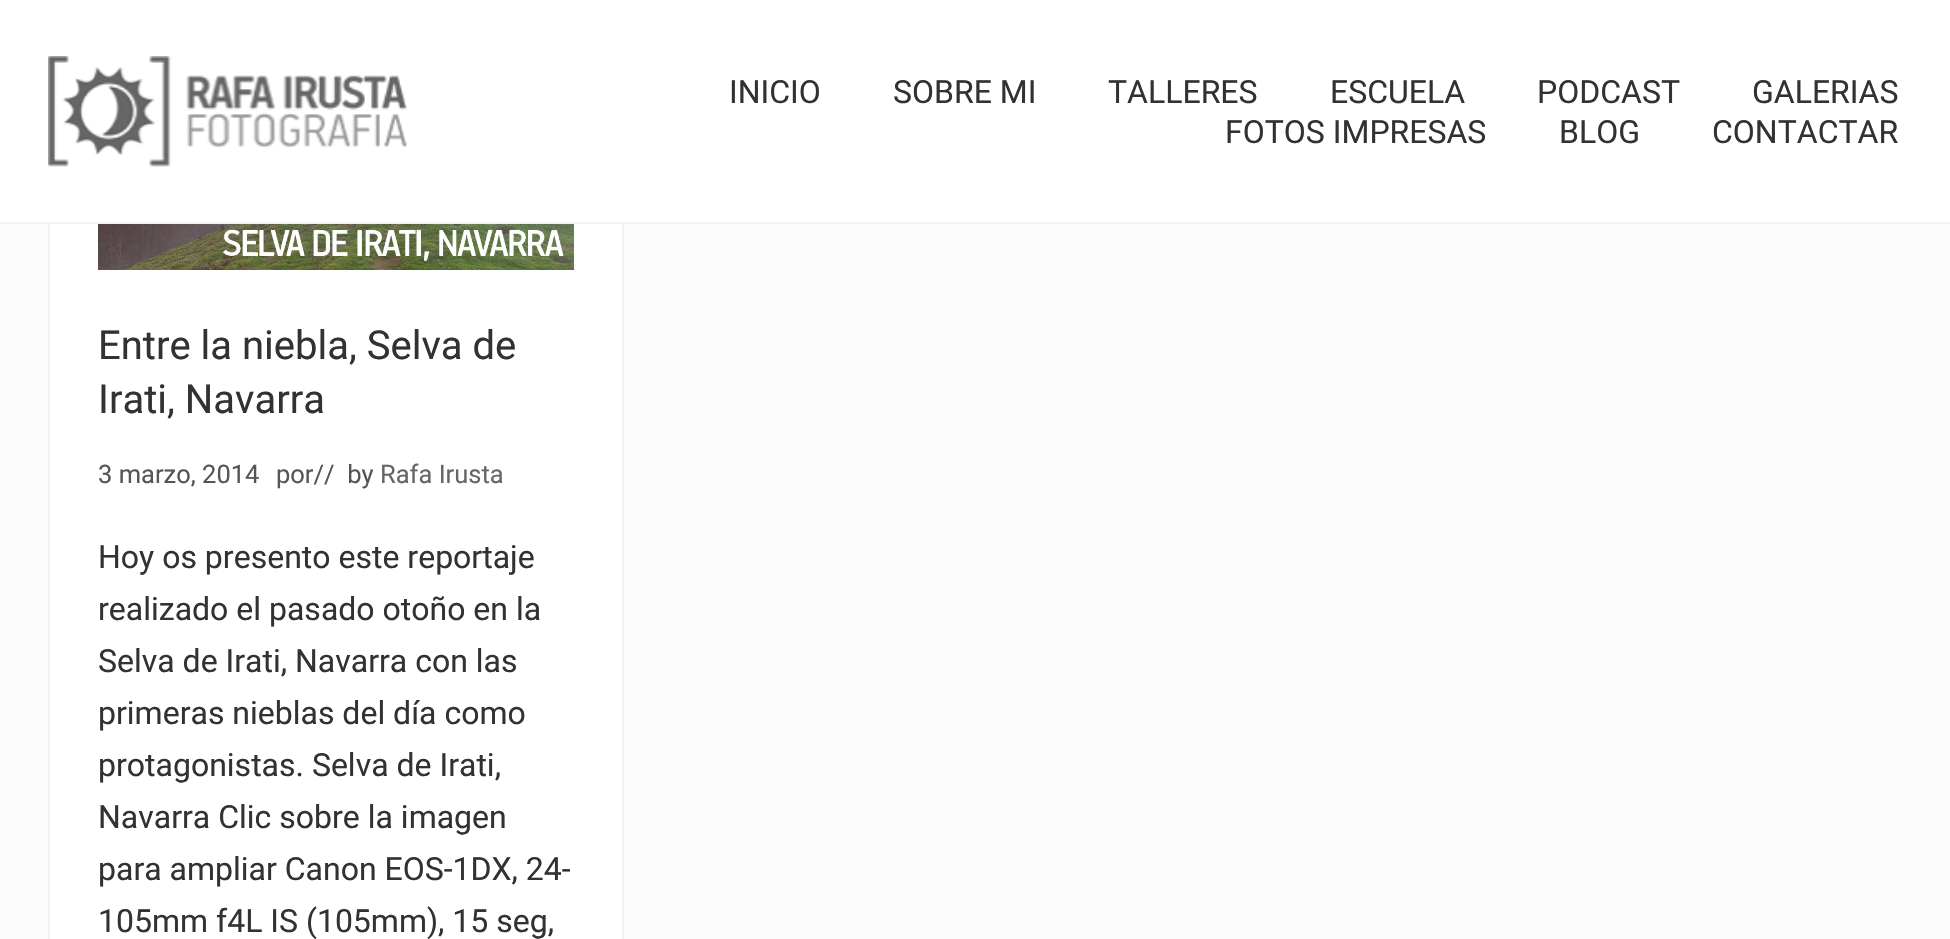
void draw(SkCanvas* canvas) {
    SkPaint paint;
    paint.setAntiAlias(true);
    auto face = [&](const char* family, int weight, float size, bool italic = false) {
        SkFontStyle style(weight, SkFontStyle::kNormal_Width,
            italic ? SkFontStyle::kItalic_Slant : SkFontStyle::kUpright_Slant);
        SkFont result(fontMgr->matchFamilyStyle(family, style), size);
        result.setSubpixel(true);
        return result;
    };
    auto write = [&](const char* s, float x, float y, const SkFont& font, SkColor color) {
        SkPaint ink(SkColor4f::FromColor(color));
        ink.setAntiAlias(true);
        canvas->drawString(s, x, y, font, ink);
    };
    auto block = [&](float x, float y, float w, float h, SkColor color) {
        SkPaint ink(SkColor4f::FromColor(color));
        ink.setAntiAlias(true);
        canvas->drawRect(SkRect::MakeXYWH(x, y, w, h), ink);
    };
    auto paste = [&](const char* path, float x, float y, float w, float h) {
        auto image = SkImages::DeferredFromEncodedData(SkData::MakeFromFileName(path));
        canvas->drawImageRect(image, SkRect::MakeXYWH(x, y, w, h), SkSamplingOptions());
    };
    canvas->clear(SkColorSetRGB(252, 252, 252));
    block(50, 224, 572, 715, SK_ColorWHITE);
    paint.setStyle(SkPaint::kStroke_Style);
    paint.setStrokeWidth(2);
    paint.setColor(SkColorSetRGB(240, 240, 240));
    canvas->drawRect(SkRect::MakeXYWH(49, -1, 574, 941), paint);
    block(0, 0, 1950, 222, SK_ColorWHITE);
    block(0, 222, 1950, 2, SkColorSetRGB(242, 242, 242));
    paste("pic1.png", 48, 56, 359, 111);
    auto kFont1 = face("Roboto", 400, 32);
    write("INICIO", 729, 103, kFont1, SkColorSetRGB(50, 50, 50));
    write("SOBRE MI", 893, 103, kFont1, SkColorSetRGB(50, 50, 50));
    write("TALLERES", 1108, 103, kFont1, SkColorSetRGB(50, 50, 50));
    write("ESCUELA", 1330, 103, kFont1, SkColorSetRGB(50, 50, 50));
    write("PODCAST", 1537, 103, kFont1, SkColorSetRGB(50, 50, 50));
    write("GALERIAS", 1752, 103, kFont1, SkColorSetRGB(50, 50, 50));
    write("FOTOS IMPRESAS", 1225, 143, kFont1, SkColorSetRGB(50, 50, 50));
    write("BLOG", 1559, 143, kFont1, SkColorSetRGB(50, 50, 50));
    write("CONTACTAR", 1712, 143, kFont1, SkColorSetRGB(50, 50, 50));
    paste("pic2.png", 98, 224, 476, 46);
    auto kFont2 = face("Roboto", 400, 40);
    write("Entre la niebla, Selva de", 98, 359, kFont2, SkColorSetRGB(50, 50, 50));
    write("Irati, Navarra", 98, 413, kFont2, SkColorSetRGB(50, 50, 50));
    auto kFont3 = face("Roboto", 400, 25.5f);
    write("3 marzo, 2014", 98, 483, kFont3, SkColorSetRGB(85, 85, 85));
    write("por//  by", 276, 483, kFont3, SkColorSetRGB(85, 85, 85));
    write("Rafa Irusta", 380, 483, kFont3, SkColorSetRGB(102, 102, 102));
    write("Hoy os presento este reportaje", 98, 568, kFont1, SkColorSetRGB(50, 50, 50));
    write("realizado el pasado otoño en la", 98, 620, kFont1, SkColorSetRGB(50, 50, 50));
    write("Selva de Irati, Navarra con las", 98, 672, kFont1, SkColorSetRGB(50, 50, 50));
    write("primeras nieblas del día como", 98, 724, kFont1, SkColorSetRGB(50, 50, 50));
    write("protagonistas. Selva de Irati,", 98, 776, kFont1, SkColorSetRGB(50, 50, 50));
    write("Navarra Clic sobre la imagen", 98, 828, kFont1, SkColorSetRGB(50, 50, 50));
    write("para ampliar Canon EOS-1DX, 24-", 98, 880, kFont1, SkColorSetRGB(50, 50, 50));
    write("105mm f4L IS (105mm), 15 seg,", 98, 932, kFont1, SkColorSetRGB(50, 50, 50));
}
